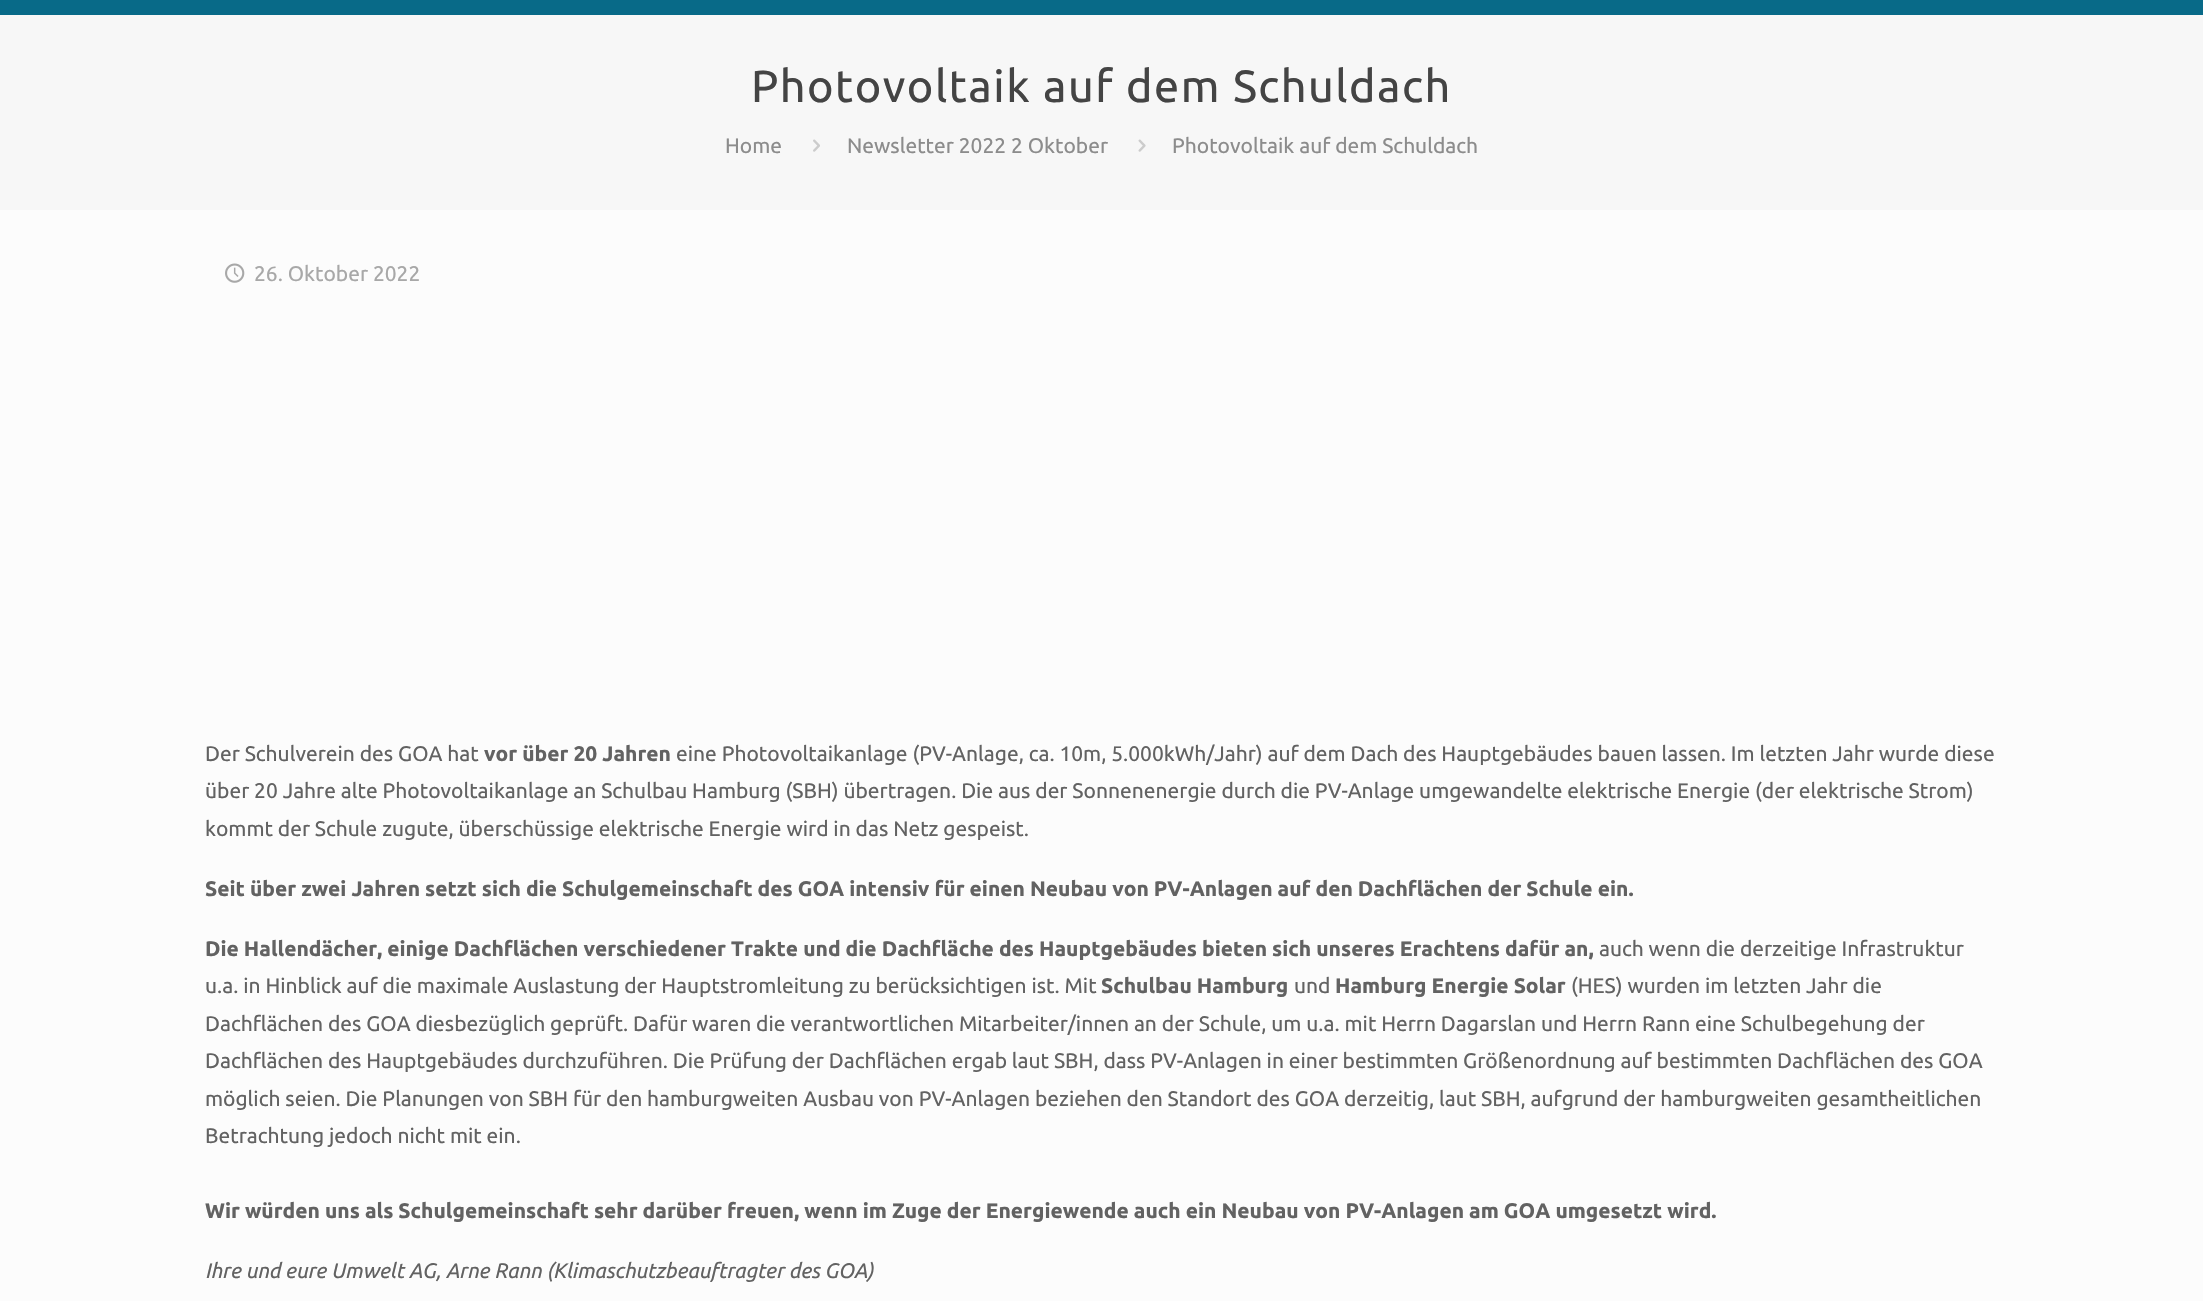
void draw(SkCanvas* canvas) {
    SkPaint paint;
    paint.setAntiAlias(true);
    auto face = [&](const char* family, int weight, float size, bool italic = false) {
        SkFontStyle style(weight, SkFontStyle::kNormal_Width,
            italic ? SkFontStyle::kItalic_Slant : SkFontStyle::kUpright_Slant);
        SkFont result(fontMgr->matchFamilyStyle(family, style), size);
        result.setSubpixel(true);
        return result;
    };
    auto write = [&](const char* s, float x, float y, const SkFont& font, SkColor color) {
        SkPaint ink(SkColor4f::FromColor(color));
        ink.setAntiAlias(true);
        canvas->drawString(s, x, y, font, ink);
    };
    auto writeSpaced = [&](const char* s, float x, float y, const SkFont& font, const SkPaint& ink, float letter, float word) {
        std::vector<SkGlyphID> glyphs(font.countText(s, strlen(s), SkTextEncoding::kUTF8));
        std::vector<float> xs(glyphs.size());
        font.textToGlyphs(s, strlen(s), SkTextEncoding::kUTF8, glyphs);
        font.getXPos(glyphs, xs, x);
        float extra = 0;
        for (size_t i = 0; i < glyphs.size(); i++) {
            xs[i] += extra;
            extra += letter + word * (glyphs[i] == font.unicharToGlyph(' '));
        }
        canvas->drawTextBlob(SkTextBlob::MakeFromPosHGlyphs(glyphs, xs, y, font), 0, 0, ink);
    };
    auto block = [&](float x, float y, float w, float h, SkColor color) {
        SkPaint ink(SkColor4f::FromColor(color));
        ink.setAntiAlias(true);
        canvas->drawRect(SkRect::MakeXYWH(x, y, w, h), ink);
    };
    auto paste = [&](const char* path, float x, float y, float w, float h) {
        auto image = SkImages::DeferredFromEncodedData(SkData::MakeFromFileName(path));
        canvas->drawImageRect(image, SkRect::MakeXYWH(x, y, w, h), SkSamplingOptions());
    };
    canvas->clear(SkColorSetRGB(252, 252, 252));
    block(0, 0, 2203, 15, SkColorSetRGB(8, 106, 136));
    block(0, 15, 2203, 195, SkColorSetRGB(247, 247, 247));
    auto kFont1 = face("Ubuntu", 400, 45);
    paint.setColor(SkColorSetRGB(68, 68, 68));
    writeSpaced("Photovoltaik auf dem Schuldach", 751, 102, kFont1, paint, 1.5f, 0);
    auto kFont2 = face("Ubuntu", 400, 21);
    write("Home", 725, 153, kFont2, SkColorSetRGB(140, 140, 140));
    paste("pic1.png", 813, 139, 7, 13);
    write("Newsletter 2022 2 Oktober", 847, 153, kFont2, SkColorSetRGB(140, 140, 140));
    paste("pic2.png", 1138, 139, 8, 13);
    write("Photovoltaik auf dem Schuldach", 1172, 153, kFont2, SkColorSetRGB(140, 140, 140));
    paste("pic3.png", 225, 263, 20, 20);
    write("26. Oktober 2022", 254, 281, kFont2, SkColorSetRGB(168, 168, 168));
    write("Der Schulverein des GOA hat", 205, 761, kFont2, SkColorSetRGB(98, 98, 98));
    auto kFont3 = face("Ubuntu", 700, 21);
    write("vor über 20 Jahren", 484, 761, kFont3, SkColorSetRGB(98, 98, 98));
    write("eine Photovoltaikanlage (PV-Anlage, ca. 10m, 5.000kWh/Jahr) auf dem Dach des Hauptgebäudes bauen lassen. Im letzten Jahr wurde diese", 676, 761, kFont2, SkColorSetRGB(98, 98, 98));
    write("über 20 Jahre alte Photovoltaikanlage an Schulbau Hamburg (SBH) übertragen. Die aus der Sonnenenergie durch die PV-Anlage umgewandelte elektrische Energie (der elektrische Strom)", 205, 798, kFont2, SkColorSetRGB(98, 98, 98));
    write("kommt der Schule zugute, überschüssige elektrische Energie wird in das Netz gespeist.", 205, 836, kFont2, SkColorSetRGB(98, 98, 98));
    write("Seit über zwei Jahren setzt sich die Schulgemeinschaft des GOA intensiv für einen Neubau von PV-Anlagen auf den Dachflächen der Schule ein.", 205, 896, kFont3, SkColorSetRGB(98, 98, 98));
    write("Die Hallendächer, einige Dachflächen verschiedener Trakte und die Dachfläche des Hauptgebäudes bieten sich unseres Erachtens dafür an,", 205, 956, kFont3, SkColorSetRGB(98, 98, 98));
    write("auch wenn die derzeitige Infrastruktur", 1599, 956, kFont2, SkColorSetRGB(98, 98, 98));
    write("u.a. in Hinblick auf die maximale Auslastung der Hauptstromleitung zu berücksichtigen ist. Mit", 205, 993, kFont2, SkColorSetRGB(98, 98, 98));
    write("Schulbau Hamburg", 1101, 993, kFont3, SkColorSetRGB(98, 98, 98));
    write("und", 1294, 993, kFont2, SkColorSetRGB(98, 98, 98));
    write("Hamburg Energie Solar", 1335, 993, kFont3, SkColorSetRGB(98, 98, 98));
    write("(HES) wurden im letzten Jahr die", 1571, 993, kFont2, SkColorSetRGB(98, 98, 98));
    write("Dachflächen des GOA diesbezüglich geprüft. Dafür waren die verantwortlichen Mitarbeiter/innen an der Schule, um u.a. mit Herrn Dagarslan und Herrn Rann eine Schulbegehung der", 205, 1031, kFont2, SkColorSetRGB(98, 98, 98));
    write("Dachflächen des Hauptgebäudes durchzuführen. Die Prüfung der Dachflächen ergab laut SBH, dass PV-Anlagen in einer bestimmten Größenordnung auf bestimmten Dachflächen des GOA", 205, 1068, kFont2, SkColorSetRGB(98, 98, 98));
    write("möglich seien. Die Planungen von SBH für den hamburgweiten Ausbau von PV-Anlagen beziehen den Standort des GOA derzeitig, laut SBH, aufgrund der hamburgweiten gesamtheitlichen", 205, 1106, kFont2, SkColorSetRGB(98, 98, 98));
    write("Betrachtung jedoch nicht mit ein.", 205, 1143, kFont2, SkColorSetRGB(98, 98, 98));
    write("Wir würden uns als Schulgemeinschaft sehr darüber freuen, wenn im Zuge der Energiewende auch ein Neubau von PV-Anlagen am GOA umgesetzt wird.", 205, 1218, kFont3, SkColorSetRGB(98, 98, 98));
    auto kFont4 = face("Ubuntu", 400, 21, true);
    write("Ihre und eure Umwelt AG, Arne Rann (Klimaschutzbeauftragter des GOA)", 205, 1278, kFont4, SkColorSetRGB(98, 98, 98));
}
